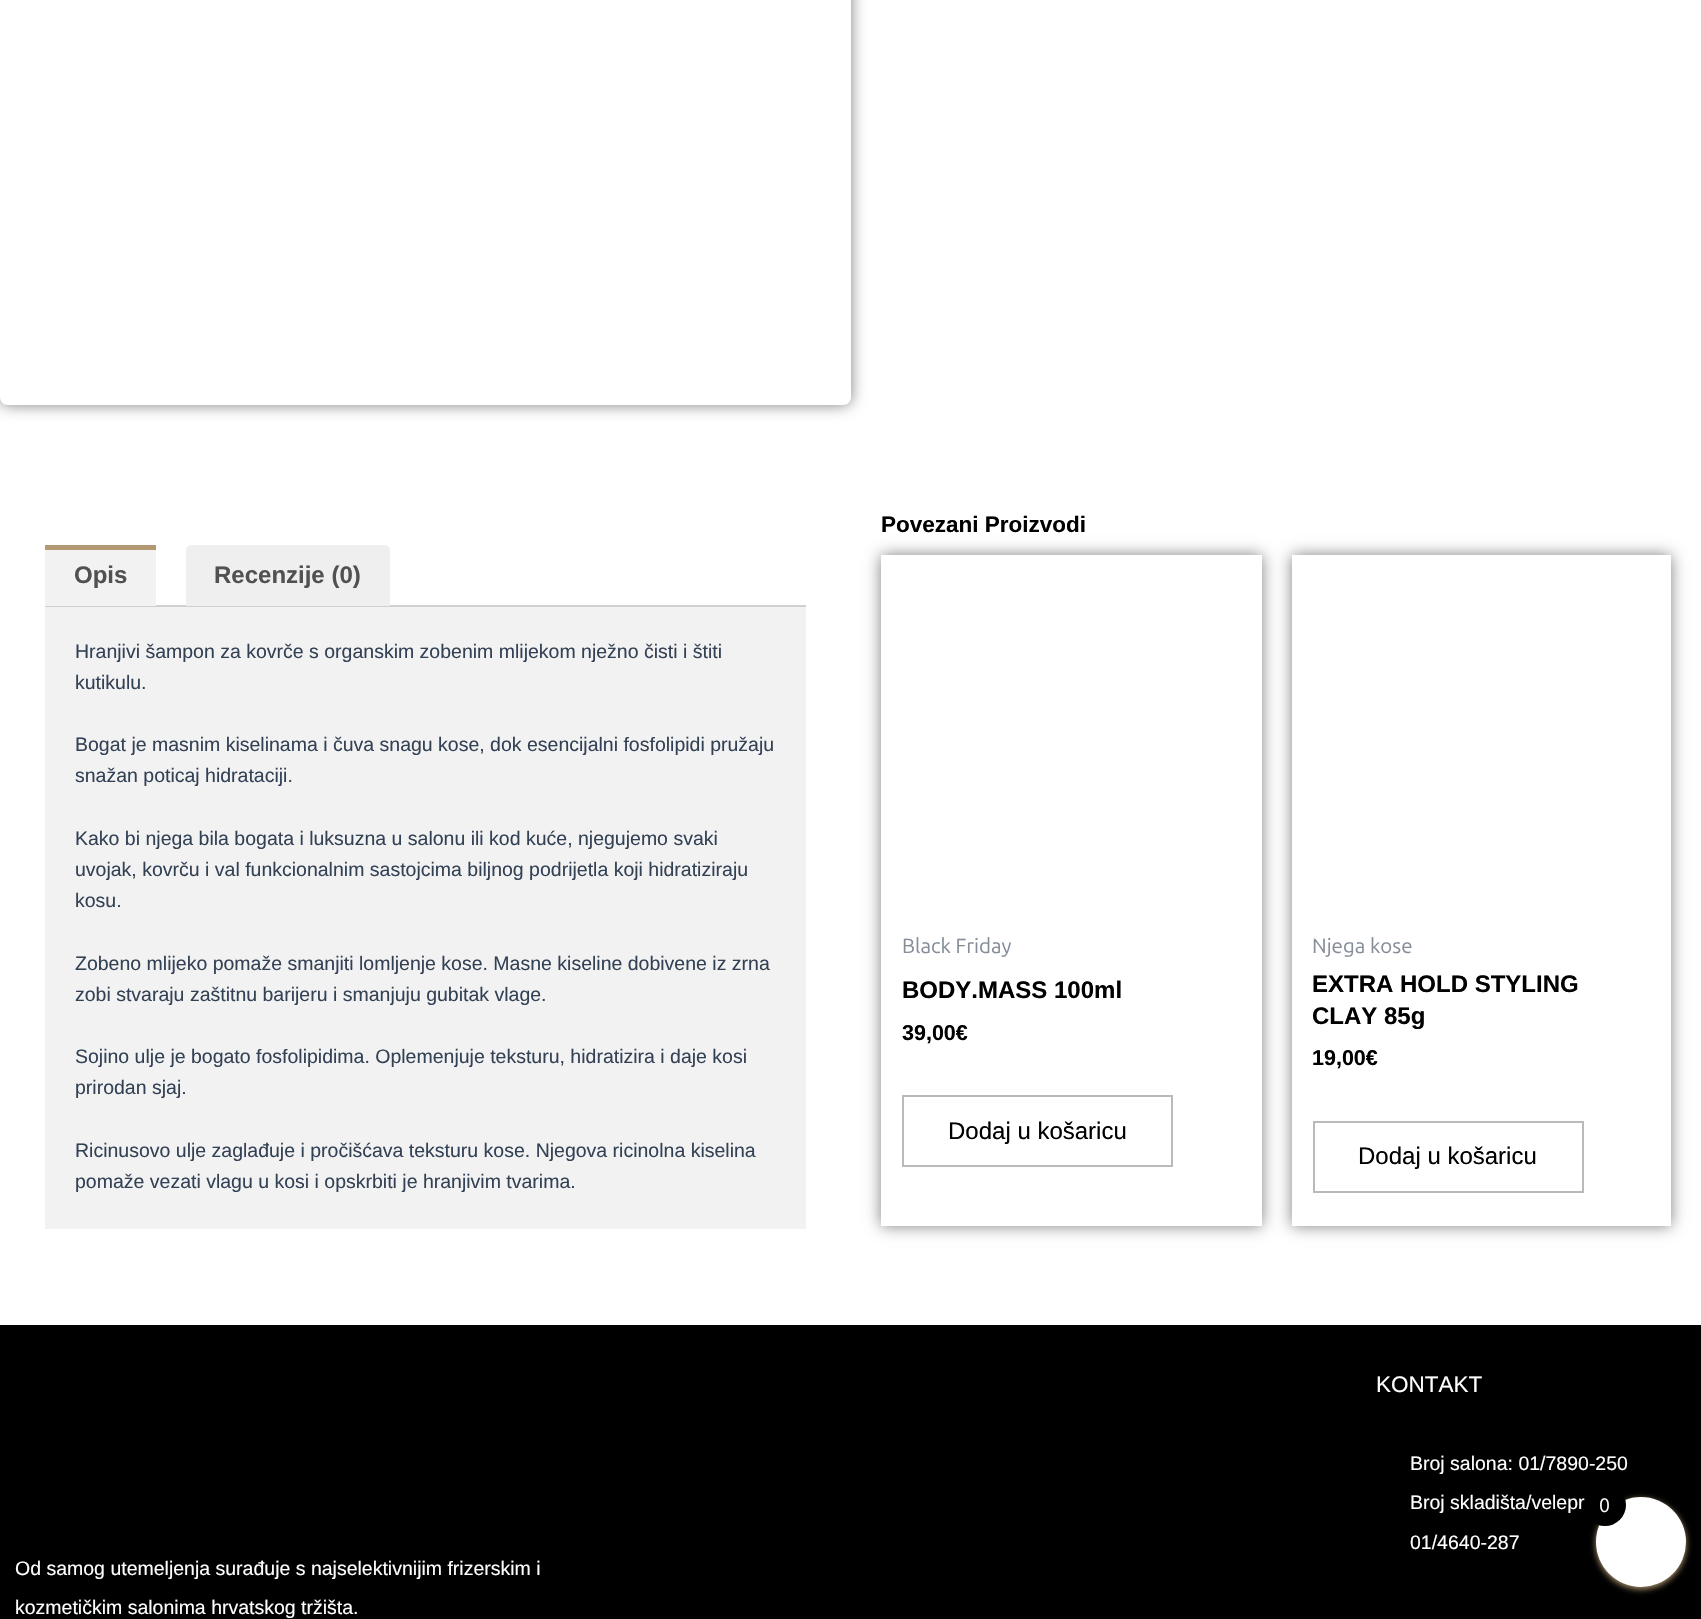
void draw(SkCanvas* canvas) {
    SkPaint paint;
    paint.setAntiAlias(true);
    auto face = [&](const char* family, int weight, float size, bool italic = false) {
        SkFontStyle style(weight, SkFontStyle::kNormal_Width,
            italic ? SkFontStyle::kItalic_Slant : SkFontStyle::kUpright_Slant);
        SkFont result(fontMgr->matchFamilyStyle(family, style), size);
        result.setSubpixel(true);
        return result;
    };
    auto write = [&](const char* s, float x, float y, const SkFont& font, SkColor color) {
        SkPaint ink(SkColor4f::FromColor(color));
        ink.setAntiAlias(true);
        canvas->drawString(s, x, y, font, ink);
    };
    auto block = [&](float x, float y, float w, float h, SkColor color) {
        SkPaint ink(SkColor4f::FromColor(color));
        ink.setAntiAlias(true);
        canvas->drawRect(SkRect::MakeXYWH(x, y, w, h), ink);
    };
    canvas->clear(SK_ColorWHITE);
    canvas->save();
    canvas->clipPath(SkPathBuilder(SkPathFillType::kEvenOdd).moveTo(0, 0).lineTo(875, 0).lineTo(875, 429).lineTo(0, 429).close().moveTo(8, -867).lineTo(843, -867).cubicTo(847.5f, -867, 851, -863.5f, 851, -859).lineTo(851, 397).cubicTo(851, 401.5f, 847.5f, 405, 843, 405).lineTo(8, 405).cubicTo(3.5f, 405, 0, 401.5f, 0, 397).lineTo(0, -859).cubicTo(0, -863.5f, 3.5f, -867, 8, -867).close().detach(), true);
    paint.setColor(SkColorSetARGB(128, 0, 0, 0));
    paint.setMaskFilter(SkMaskFilter::MakeBlur(kNormal_SkBlurStyle, 7.5f));
    canvas->drawRoundRect(SkRect::MakeXYWH(0, -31, 851, 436), 8, 8, paint);
    paint.setMaskFilter(nullptr);
    canvas->restore();
    block(45, 605, 761, 2, SkColorSetRGB(211, 206, 210));
    block(45, 550, 111, 56, SkColorSetRGB(242, 242, 242));
    block(45, 545, 111, 5, SkColorSetRGB(179, 153, 113));
    auto kFont1 = face("Liberation Sans", 700, 24);
    write("Opis", 74, 583, kFont1, SkColorSetRGB(81, 81, 81));
    paint.setColor(SkColorSetRGB(239, 239, 239));
    canvas->drawPath(SkPathBuilder().moveTo(192, 545).lineTo(384, 545).cubicTo(387.5f, 545, 390, 547.5f, 390, 551).lineTo(390, 606).lineTo(186, 606).lineTo(186, 551).cubicTo(186, 547.5f, 188.5f, 545, 192, 545).close().detach(), paint);
    write("Recenzije (0)", 214, 583, kFont1, SkColorSetRGB(81, 81, 81));
    block(45, 607, 761, 622, SkColorSetRGB(242, 242, 242));
    auto kFont2 = face("Liberation Sans", 400, 19.5f);
    write("Hranjivi šampon za kovrče s organskim zobenim mlijekom nježno čisti i štiti", 75, 658, kFont2, SkColorSetRGB(51, 65, 85));
    write("kutikulu.", 75, 689, kFont2, SkColorSetRGB(51, 65, 85));
    write("Bogat je masnim kiselinama i čuva snagu kose, dok esencijalni fosfolipidi pružaju", 75, 751, kFont2, SkColorSetRGB(51, 65, 85));
    write("snažan poticaj hidrataciji.", 75, 782, kFont2, SkColorSetRGB(51, 65, 85));
    write("Kako bi njega bila bogata i luksuzna u salonu ili kod kuće, njegujemo svaki", 75, 845, kFont2, SkColorSetRGB(51, 65, 85));
    write("uvojak, kovrču i val funkcionalnim sastojcima biljnog podrijetla koji hidratiziraju", 75, 876, kFont2, SkColorSetRGB(51, 65, 85));
    write("kosu.", 75, 907, kFont2, SkColorSetRGB(51, 65, 85));
    write("Zobeno mlijeko pomaže smanjiti lomljenje kose. Masne kiseline dobivene iz zrna", 75, 970, kFont2, SkColorSetRGB(51, 65, 85));
    write("zobi stvaraju zaštitnu barijeru i smanjuju gubitak vlage.", 75, 1001, kFont2, SkColorSetRGB(51, 65, 85));
    write("Sojino ulje je bogato fosfolipidima. Oplemenjuje teksturu, hidratizira i daje kosi", 75, 1063, kFont2, SkColorSetRGB(51, 65, 85));
    write("prirodan sjaj.", 75, 1094, kFont2, SkColorSetRGB(51, 65, 85));
    write("Ricinusovo ulje zaglađuje i pročišćava teksturu kose. Njegova ricinolna kiselina", 75, 1157, kFont2, SkColorSetRGB(51, 65, 85));
    write("pomaže vezati vlagu u kosi i opskrbiti je hranjivim tvarima.", 75, 1188, kFont2, SkColorSetRGB(51, 65, 85));
    auto kFont3 = face("Liberation Sans", 700, 22.5f);
    write("Povezani Proizvodi", 881, 532, kFont3, SK_ColorBLACK);
    canvas->save();
    canvas->clipPath(SkPathBuilder(SkPathFillType::kEvenOdd).moveTo(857, 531).lineTo(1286, 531).lineTo(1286, 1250).lineTo(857, 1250).close().moveTo(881, 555).lineTo(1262, 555).lineTo(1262, 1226).lineTo(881, 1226).close().detach(), true);
    paint.setColor(SkColorSetARGB(128, 0, 0, 0));
    paint.setMaskFilter(SkMaskFilter::MakeBlur(kNormal_SkBlurStyle, 7.5f));
    canvas->drawRect(SkRect::MakeXYWH(881, 555, 381, 671), paint);
    paint.setMaskFilter(nullptr);
    canvas->restore();
    auto kFont4 = face("Ubuntu", 400, 20.5f);
    write("Black Friday", 902, 953, kFont4, SkColorSetRGB(133, 141, 153));
    write("BODY.MASS 100ml", 902, 998, kFont1, SK_ColorBLACK);
    auto kFont5 = face("Liberation Sans", 700, 21.5f);
    write("39,00€", 902, 1040, kFont5, SK_ColorBLACK);
    paint.setStyle(SkPaint::kStroke_Style);
    paint.setStrokeWidth(2);
    paint.setColor(SkColorSetRGB(186, 186, 186));
    canvas->drawRect(SkRect::MakeXYWH(903, 1096, 269, 70), paint);
    auto kFont6 = face("Liberation Sans", 400, 24);
    write("Dodaj u košaricu", 948, 1139, kFont6, SK_ColorBLACK);
    canvas->save();
    canvas->clipPath(SkPathBuilder(SkPathFillType::kEvenOdd).moveTo(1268, 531).lineTo(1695, 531).lineTo(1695, 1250).lineTo(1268, 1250).close().moveTo(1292, 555).lineTo(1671, 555).lineTo(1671, 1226).lineTo(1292, 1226).close().detach(), true);
    paint.setStyle(SkPaint::kFill_Style);
    paint.setColor(SkColorSetARGB(128, 0, 0, 0));
    paint.setMaskFilter(SkMaskFilter::MakeBlur(kNormal_SkBlurStyle, 7.5f));
    canvas->drawRect(SkRect::MakeXYWH(1292, 555, 379, 671), paint);
    paint.setMaskFilter(nullptr);
    canvas->restore();
    write("Njega kose", 1312, 953, kFont4, SkColorSetRGB(133, 141, 153));
    write("EXTRA HOLD STYLING", 1312, 992, kFont1, SK_ColorBLACK);
    write("CLAY 85g", 1312, 1024, kFont1, SK_ColorBLACK);
    write("19,00€", 1312, 1065, kFont5, SK_ColorBLACK);
    paint.setStyle(SkPaint::kStroke_Style);
    paint.setColor(SkColorSetRGB(186, 186, 186));
    canvas->drawRect(SkRect::MakeXYWH(1314, 1122, 269, 70), paint);
    write("Dodaj u košaricu", 1358, 1164, kFont6, SK_ColorBLACK);
    block(0, 1325, 1701, 294, SK_ColorBLACK);
    auto kFont7 = face("Liberation Sans", 400, 22.5f);
    write("KONTAKT", 1376, 1392, kFont7, SK_ColorWHITE);
    write("Broj salona: 01/7890-250", 1410, 1470, kFont2, SK_ColorWHITE);
    write("Broj skladišta/velepr", 1410, 1509, kFont2, SK_ColorWHITE);
    write("01/4640-287", 1410, 1549, kFont2, SK_ColorWHITE);
    write("Od samog utemeljenja surađuje s najselektivnijim frizerskim i", 15, 1575, kFont2, SK_ColorWHITE);
    write("kozmetičkim salonima hrvatskog tržišta.", 15, 1614, kFont2, SK_ColorWHITE);
    paint.setStyle(SkPaint::kFill_Style);
    paint.setColor(SkColorSetRGB(179, 153, 113));
    paint.setMaskFilter(SkMaskFilter::MakeBlur(kNormal_SkBlurStyle, 3));
    canvas->drawRoundRect(SkRect::MakeXYWH(1596, 1499, 90, 90), 45, 45, paint);
    paint.setMaskFilter(nullptr);
    paint.setColor(SK_ColorWHITE);
    canvas->drawCircle(1641, 1542, 45, paint);
    paint.setColor(SK_ColorBLACK);
    canvas->drawCircle(1605, 1505, 21, paint);
    auto kFont8 = face("Ubuntu", 400, 19.5f);
    write("0", 1599, 1512, kFont8, SK_ColorWHITE);
}
